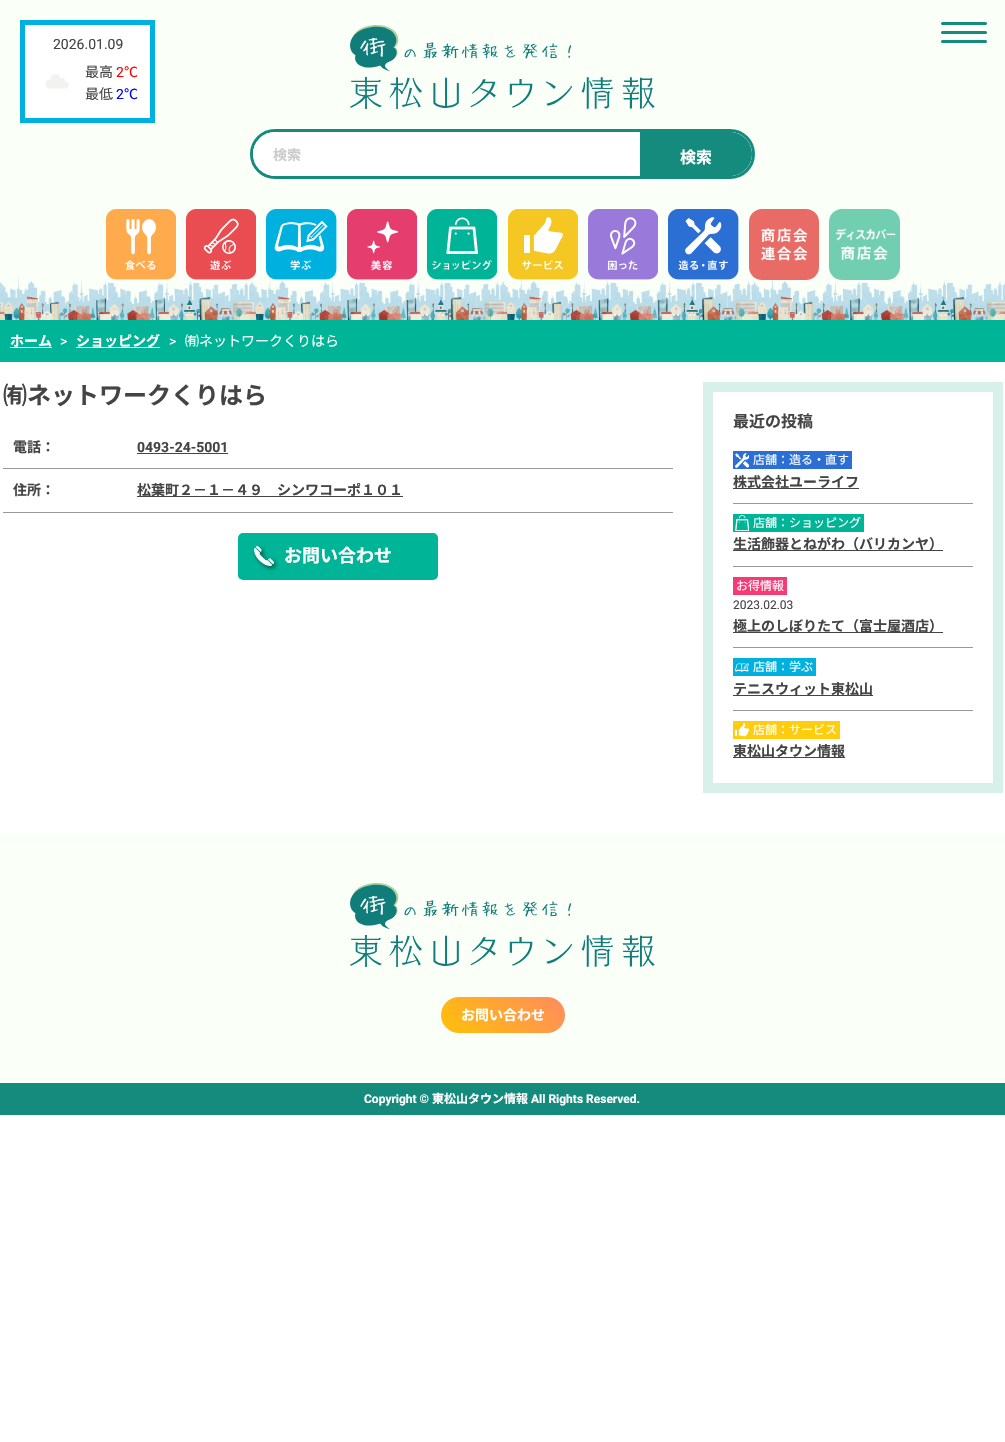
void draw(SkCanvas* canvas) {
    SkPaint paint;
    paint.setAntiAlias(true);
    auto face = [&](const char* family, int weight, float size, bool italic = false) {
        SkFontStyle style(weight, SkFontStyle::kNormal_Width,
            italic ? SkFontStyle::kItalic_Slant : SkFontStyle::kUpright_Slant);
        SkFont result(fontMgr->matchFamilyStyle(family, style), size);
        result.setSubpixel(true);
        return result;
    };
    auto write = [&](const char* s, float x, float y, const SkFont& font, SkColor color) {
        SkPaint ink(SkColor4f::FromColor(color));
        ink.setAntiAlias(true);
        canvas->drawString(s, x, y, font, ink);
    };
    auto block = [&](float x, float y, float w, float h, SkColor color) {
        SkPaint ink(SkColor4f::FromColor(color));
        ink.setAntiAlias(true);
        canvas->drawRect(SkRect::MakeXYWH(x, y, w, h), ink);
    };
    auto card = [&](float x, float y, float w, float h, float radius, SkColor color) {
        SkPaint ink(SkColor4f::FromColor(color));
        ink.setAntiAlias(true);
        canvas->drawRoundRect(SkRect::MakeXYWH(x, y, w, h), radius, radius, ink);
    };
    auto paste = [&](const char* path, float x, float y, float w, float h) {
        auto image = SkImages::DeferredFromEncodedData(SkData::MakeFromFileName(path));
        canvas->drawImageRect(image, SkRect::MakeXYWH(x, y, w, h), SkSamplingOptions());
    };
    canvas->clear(SK_ColorWHITE);
    block(0, 0, 1005, 320, SkColorSetRGB(250, 255, 247));
    card(941, 22, 46, 3, 1.5f, SkColorSetRGB(21, 139, 126));
    card(941, 31, 46, 3, 1.5f, SkColorSetRGB(21, 139, 126));
    card(941, 40, 46, 3, 1.5f, SkColorSetRGB(21, 139, 126));
    paste("pic1.png", 0, 276, 1005, 44);
    paint.setColor(SK_ColorWHITE);
    canvas->drawRect(SkRect::MakeXYWH(22.5f, 22.5f, 130, 98), paint);
    paint.setStyle(SkPaint::kStroke_Style);
    paint.setStrokeWidth(5);
    paint.setColor(SkColorSetRGB(0, 177, 224));
    canvas->drawRect(SkRect::MakeXYWH(22.5f, 22.5f, 130, 98), paint);
    auto kFont1 = face("Roboto", 400, 14);
    write("2026.01.09", 53, 49, kFont1, SkColorSetRGB(68, 68, 68));
    paste("pic2.png", 45, 74, 24, 15);
    auto kFont2 = face("Noto Sans JP", 400, 14);
    write("最高", 85, 77, kFont2, SkColorSetRGB(68, 68, 68));
    write("2", 116, 77, kFont1, SkColorSetRGB(255, 0, 0));
    write("℃", 124, 77, kFont2, SkColorSetRGB(255, 0, 0));
    write("最低", 85, 99, kFont2, SkColorSetRGB(68, 68, 68));
    write("2", 116, 99, kFont1, SkColorSetRGB(0, 0, 255));
    write("℃", 124, 99, kFont2, SkColorSetRGB(0, 0, 255));
    paste("pic3.png", 350, 25, 305, 84);
    paint.setStrokeWidth(3);
    paint.setColor(SkColorSetRGB(21, 139, 126));
    canvas->drawRoundRect(SkRect::MakeXYWH(251.5f, 130.5f, 502, 47), 23.5f, 23.5f, paint);
    card(253, 132, 499, 44, 22, SK_ColorWHITE);
    auto kFont3 = face("Noto Sans JP", 700, 14);
    write("検索", 273, 160, kFont3, SkColorSetRGB(204, 204, 204));
    paint.setStyle(SkPaint::kFill_Style);
    canvas->drawPath(SkPathBuilder().moveTo(640, 132).lineTo(730, 132).cubicTo(742, 132, 752, 142, 752, 154).cubicTo(752, 166, 742, 176, 730, 176).lineTo(640, 176).close().detach(), paint);
    auto kFont4 = face("Noto Sans JP", 700, 16);
    write("検索", 680, 163, kFont4, SK_ColorWHITE);
    paste("pic4.png", 106, 209, 70, 71);
    paste("pic5.png", 186, 209, 70, 71);
    paste("pic6.png", 266, 209, 71, 71);
    paste("pic7.png", 347, 209, 70, 71);
    paste("pic8.png", 427, 209, 70, 71);
    paste("pic9.png", 508, 209, 70, 71);
    paste("pic10.png", 588, 209, 70, 71);
    paste("pic11.png", 668, 209, 71, 71);
    paste("pic12.png", 749, 209, 70, 71);
    paste("pic13.png", 829, 209, 71, 71);
    block(0, 320, 1005, 42, SkColorSetRGB(0, 180, 151));
    write("ホーム", 10, 346, kFont3, SK_ColorWHITE);
    block(10, 347, 42, 1, SK_ColorWHITE);
    write(">", 60, 346, kFont1, SK_ColorWHITE);
    block(76, 347, 84, 1, SK_ColorWHITE);
    write("ショッピング", 76, 346, kFont3, SK_ColorWHITE);
    write(">", 169, 346, kFont1, SK_ColorWHITE);
    write("㈲ネットワークくりはら", 185, 346, kFont2, SK_ColorWHITE);
    auto kFont5 = face("Noto Sans JP", 700, 24);
    write("㈲ネットワークくりはら", 3, 404, kFont5, SkColorSetRGB(68, 68, 68));
    block(3, 468, 670, 1, SkColorSetRGB(153, 153, 153));
    write("電話：", 13, 452, kFont3, SkColorSetRGB(68, 68, 68));
    auto kFont6 = face("Roboto", 700, 14);
    write("0493-24-5001", 137, 452, kFont6, SkColorSetRGB(68, 68, 68));
    block(137, 453, 91, 1, SkColorSetRGB(68, 68, 68));
    block(3, 512, 670, 1, SkColorSetRGB(153, 153, 153));
    write("住所：", 13, 495, kFont3, SkColorSetRGB(68, 68, 68));
    block(137, 496, 266, 1, SkColorSetRGB(68, 68, 68));
    write("松葉町２－１－４９　シンワコーポ１０１", 137, 495, kFont3, SkColorSetRGB(68, 68, 68));
    card(238, 533, 200, 47, 5, SkColorSetRGB(0, 180, 151));
    paste("pic14.png", 253, 545, 26, 26);
    auto kFont7 = face("Noto Sans JP", 700, 18);
    write("お問い合わせ", 284, 562, kFont7, SK_ColorWHITE);
    paint.setStyle(SkPaint::kStroke_Style);
    paint.setStrokeWidth(10);
    paint.setColor(SkColorSetRGB(215, 240, 234));
    canvas->drawRect(SkRect::MakeXYWH(708, 387, 290, 401), paint);
    write("最近の投稿", 733, 427, kFont4, SkColorSetRGB(68, 68, 68));
    block(733, 451, 119, 18, SkColorSetRGB(43, 110, 212));
    paste("pic15.png", 735, 453, 14, 15);
    auto kFont8 = face("Noto Sans JP", 400, 12);
    write("店舗：造る・直す", 753, 464, kFont8, SK_ColorWHITE);
    block(733, 503, 240, 1, SkColorSetRGB(153, 153, 153));
    block(733, 488, 126, 1, SkColorSetRGB(68, 68, 68));
    write("株式会社ユーライフ", 733, 487, kFont3, SkColorSetRGB(68, 68, 68));
    block(733, 514, 131, 18, SkColorSetRGB(0, 180, 151));
    paste("pic16.png", 735, 515, 14, 16);
    write("店舗：ショッピング", 753, 527, kFont8, SK_ColorWHITE);
    block(733, 566, 240, 1, SkColorSetRGB(153, 153, 153));
    block(733, 550, 210, 1, SkColorSetRGB(68, 68, 68));
    write("生活飾器とねがわ（バリカンヤ）", 733, 549, kFont3, SkColorSetRGB(68, 68, 68));
    block(733, 577, 54, 18, SkColorSetRGB(246, 58, 115));
    write("お得情報", 736, 590, kFont8, SK_ColorWHITE);
    auto kFont9 = face("Roboto", 400, 12);
    write("2023.02.03", 733, 609, kFont9, SkColorSetRGB(68, 68, 68));
    block(733, 647, 240, 1, SkColorSetRGB(153, 153, 153));
    block(733, 632, 210, 1, SkColorSetRGB(68, 68, 68));
    write("極上のしぼりたて（富士屋酒店）", 733, 631, kFont3, SkColorSetRGB(68, 68, 68));
    block(733, 658, 83, 18, SkColorSetRGB(0, 177, 224));
    paste("pic17.png", 735, 663, 14, 9);
    write("店舗：学ぶ", 753, 671, kFont8, SK_ColorWHITE);
    block(733, 710, 240, 1, SkColorSetRGB(153, 153, 153));
    block(733, 695, 140, 1, SkColorSetRGB(68, 68, 68));
    write("テニスウィット東松山", 733, 694, kFont3, SkColorSetRGB(68, 68, 68));
    block(733, 721, 107, 18, SkColorSetRGB(255, 205, 12));
    paste("pic18.png", 735, 723, 14, 14);
    write("店舗：サービス", 753, 734, kFont8, SK_ColorWHITE);
    block(733, 757, 112, 1, SkColorSetRGB(68, 68, 68));
    write("東松山タウン情報", 733, 756, kFont3, SkColorSetRGB(68, 68, 68));
    block(0, 833, 1005, 250, SkColorSetRGB(250, 255, 247));
    paste("pic3.png", 350, 883, 305, 84);
    paint.setStyle(SkPaint::kFill_Style);
    {
        const SkColor colors[] = {SkColorSetRGB(255, 193, 7), SkColorSetRGB(255, 139, 95)};
        const float stops[] = {0, 1};
        const SkPoint ends[] = {{463, 1055}, {543, 975}};
        paint.setShader(SkGradientShader::MakeLinear(ends, colors, stops, 2, SkTileMode::kClamp));
        paint.setAlpha(255);
    }
    canvas->drawRoundRect(SkRect::MakeXYWH(441, 997, 124, 36), 18, 18, paint);
    write("お問い合わせ", 461, 1020, kFont3, SK_ColorWHITE);
    block(0, 1083, 1005, 32, SkColorSetRGB(21, 139, 126));
    auto kFont10 = face("Roboto", 700, 12);
    write("Copyright ©", 364, 1103, kFont10, SK_ColorWHITE);
    auto kFont11 = face("Noto Sans JP", 700, 12);
    write("東松山タウン情報", 432, 1103, kFont11, SK_ColorWHITE);
    write("All Rights Reserved.", 531, 1103, kFont10, SK_ColorWHITE);
}
